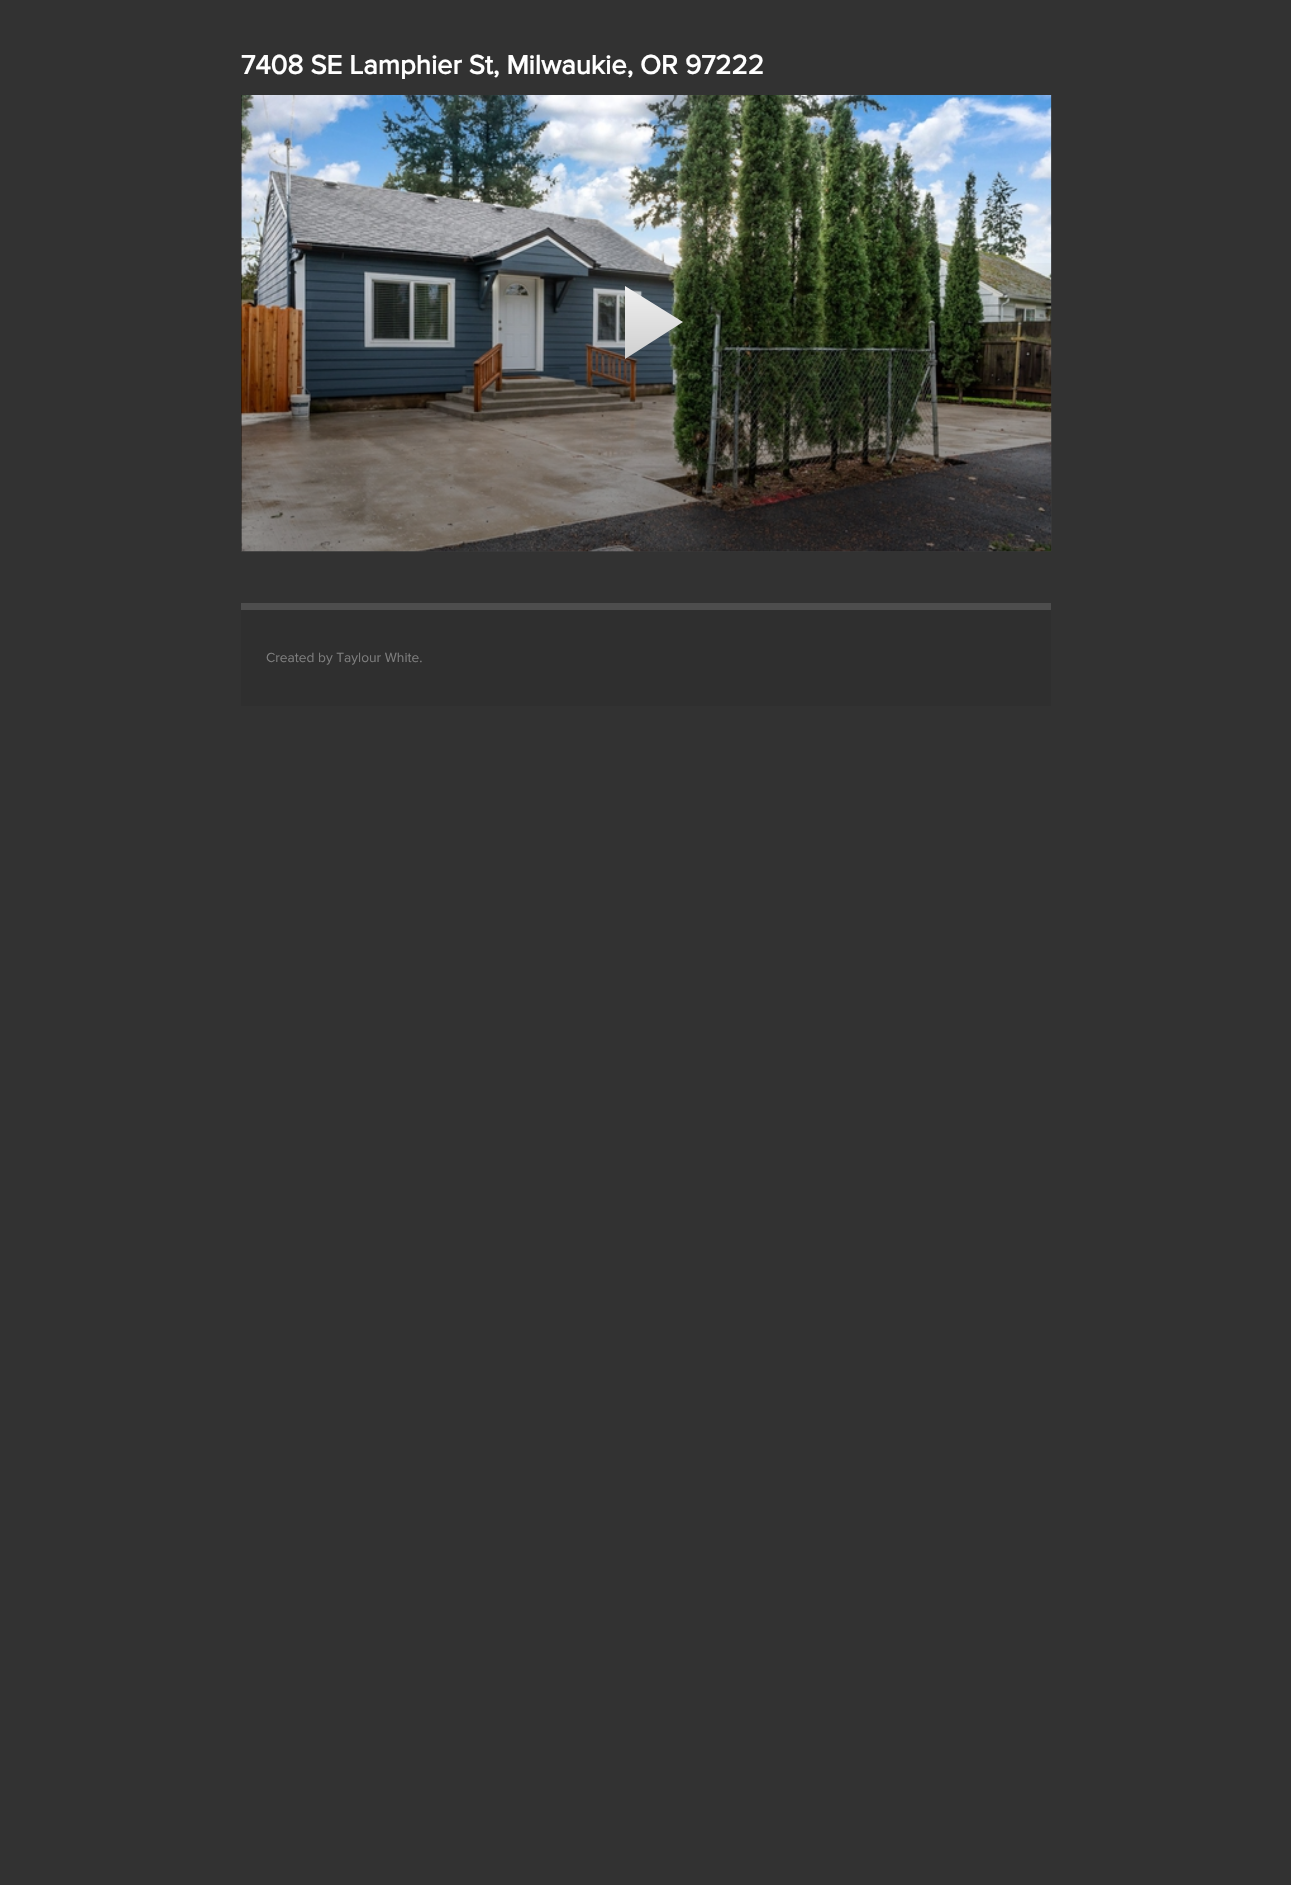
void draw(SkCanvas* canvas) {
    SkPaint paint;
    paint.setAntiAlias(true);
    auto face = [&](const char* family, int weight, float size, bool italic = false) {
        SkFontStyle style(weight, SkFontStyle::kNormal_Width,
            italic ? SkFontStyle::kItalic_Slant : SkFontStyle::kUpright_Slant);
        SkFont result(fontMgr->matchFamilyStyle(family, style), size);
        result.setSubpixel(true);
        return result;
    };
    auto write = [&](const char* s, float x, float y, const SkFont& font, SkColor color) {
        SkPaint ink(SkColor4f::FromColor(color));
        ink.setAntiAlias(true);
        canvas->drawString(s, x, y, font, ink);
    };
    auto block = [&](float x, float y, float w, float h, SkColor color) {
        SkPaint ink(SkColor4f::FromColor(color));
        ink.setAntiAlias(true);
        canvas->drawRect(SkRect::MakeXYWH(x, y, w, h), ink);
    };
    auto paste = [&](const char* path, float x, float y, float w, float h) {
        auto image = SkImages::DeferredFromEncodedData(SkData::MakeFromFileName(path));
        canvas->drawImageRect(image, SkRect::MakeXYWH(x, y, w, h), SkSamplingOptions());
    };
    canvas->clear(SkColorSetRGB(50, 50, 50));
    auto kFont1 = face("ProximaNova", 700, 27.5f);
    write("7408 SE Lamphier St, Milwaukie, OR 97222", 241, 74, kFont1, SK_ColorWHITE);
    paste("pic1.png", 241, 95, 811, 457);
    block(241, 95, 1, 456, SK_ColorBLACK);
    paste("pic2.png", 241, 95, 811, 457);
    paint.setColor(SK_ColorWHITE);
    canvas->drawPath(SkPathBuilder().moveTo(625, 286).lineTo(625, 359).lineTo(683, 322).close().detach(), paint);
    {
        const SkColor colors[] = {SkColorSetARGB(0, 0, 0, 0), SkColorSetARGB(102, 0, 0, 0), SkColorSetARGB(102, 0, 0, 0)};
        const float stops[] = {0, 0.77f, 1};
        const SkPoint ends[] = {{646, 251}, {646, 551}};
        paint.setShader(SkGradientShader::MakeLinear(ends, colors, stops, 3, SkTileMode::kClamp));
        paint.setAlpha(255);
    }
    canvas->drawRect(SkRect::MakeXYWH(241, 263, 810, 288), paint);
    block(241, 610, 810, 96, SkColorSetRGB(47, 47, 47));
    block(241, 603, 810, 7, SkColorSetRGB(77, 77, 77));
    auto kFont2 = face("ProximaNova", 400, 13.75f);
    write("Created by Taylour White.", 266, 662, kFont2, SkColorSetRGB(125, 125, 125));
}
